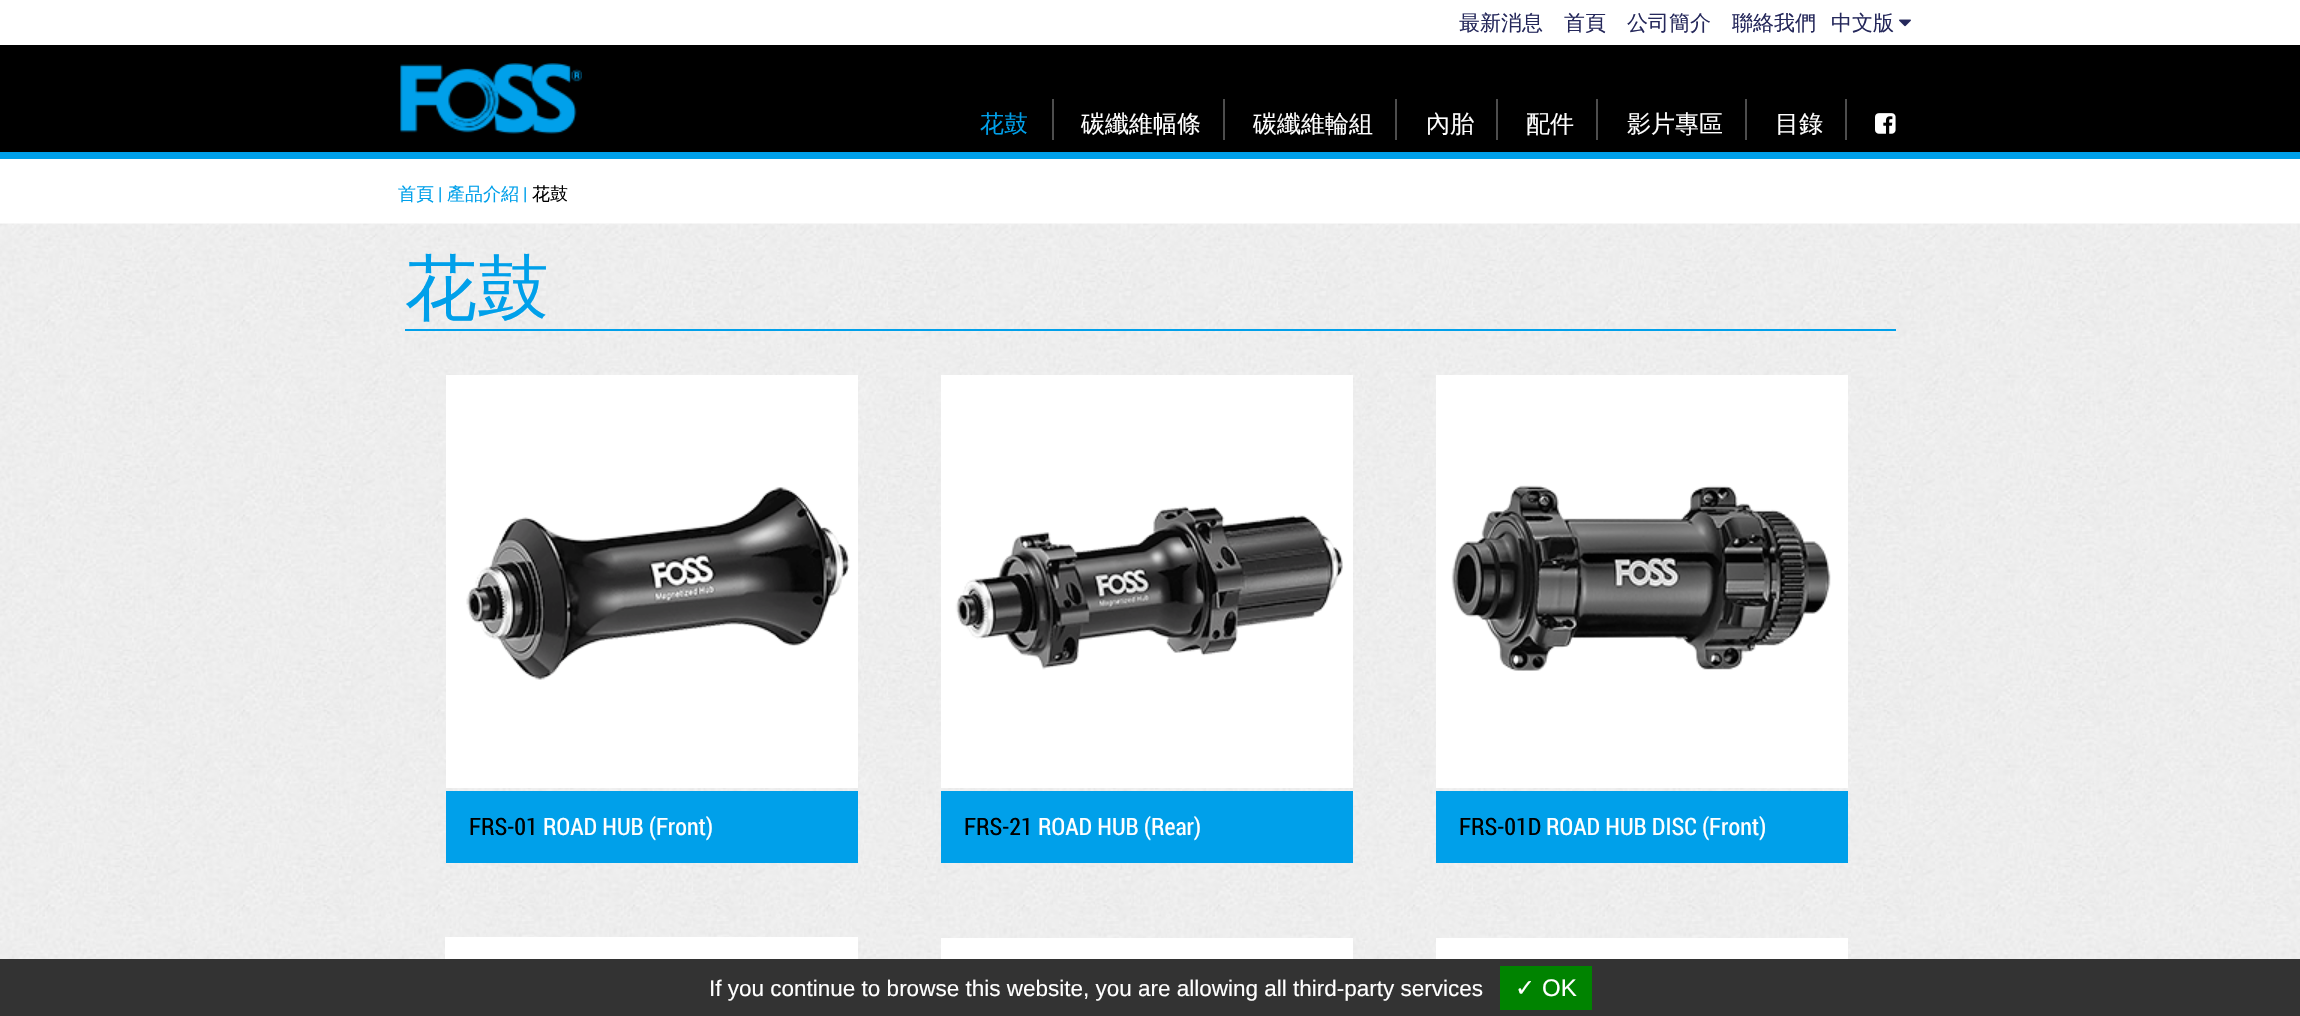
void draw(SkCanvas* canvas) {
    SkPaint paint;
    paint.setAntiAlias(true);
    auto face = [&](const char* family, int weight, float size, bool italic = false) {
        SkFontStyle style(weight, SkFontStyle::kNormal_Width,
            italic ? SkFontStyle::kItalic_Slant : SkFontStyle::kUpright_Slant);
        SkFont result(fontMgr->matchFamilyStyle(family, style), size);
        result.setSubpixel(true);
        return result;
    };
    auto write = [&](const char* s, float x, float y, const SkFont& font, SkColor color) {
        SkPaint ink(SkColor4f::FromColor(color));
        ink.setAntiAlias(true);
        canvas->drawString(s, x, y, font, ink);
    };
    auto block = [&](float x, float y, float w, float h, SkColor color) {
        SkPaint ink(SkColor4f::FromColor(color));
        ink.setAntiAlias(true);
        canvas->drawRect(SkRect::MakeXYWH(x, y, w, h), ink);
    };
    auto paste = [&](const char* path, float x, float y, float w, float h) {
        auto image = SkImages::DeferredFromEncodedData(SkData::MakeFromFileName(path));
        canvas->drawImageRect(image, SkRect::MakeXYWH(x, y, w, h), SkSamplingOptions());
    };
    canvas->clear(SK_ColorWHITE);
    auto kFont1 = face("WenQuanYi Zen Hei", 500, 21);
    write("最新消息", 1459, 30, kFont1, SkColorSetRGB(37, 40, 91));
    write("首頁", 1564, 30, kFont1, SkColorSetRGB(37, 40, 91));
    write("公司簡介", 1627, 30, kFont1, SkColorSetRGB(37, 40, 91));
    write("聯絡我們", 1732, 30, kFont1, SkColorSetRGB(37, 40, 91));
    write("中文版", 1831, 30, kFont1, SkColorSetRGB(37, 40, 91));
    paste("pic1.png", 1899, 19, 12, 8);
    block(0, 45, 2300, 107, SK_ColorBLACK);
    block(0, 152, 2300, 7, SkColorSetRGB(0, 160, 234));
    paste("pic2.png", 400, 63, 182, 71);
    auto kFont2 = face("WenQuanYi Zen Hei", 500, 24);
    write("花鼓", 980, 132, kFont2, SkColorSetRGB(0, 160, 234));
    block(1052, 99, 2, 41, SkColorSetRGB(77, 77, 77));
    write("碳纖維幅條", 1081, 132, kFont2, SK_ColorWHITE);
    block(1223, 99, 2, 41, SkColorSetRGB(77, 77, 77));
    write("碳纖維輪組", 1253, 132, kFont2, SK_ColorWHITE);
    block(1395, 99, 2, 41, SkColorSetRGB(77, 77, 77));
    write("內胎", 1426, 132, kFont2, SK_ColorWHITE);
    block(1496, 99, 2, 41, SkColorSetRGB(77, 77, 77));
    write("配件", 1526, 132, kFont2, SK_ColorWHITE);
    block(1596, 99, 2, 41, SkColorSetRGB(77, 77, 77));
    write("影片專區", 1627, 132, kFont2, SK_ColorWHITE);
    block(1745, 99, 2, 41, SkColorSetRGB(77, 77, 77));
    write("目錄", 1775, 132, kFont2, SK_ColorWHITE);
    block(1845, 99, 2, 41, SkColorSetRGB(77, 77, 77));
    paste("pic3.png", 1875, 113, 21, 21);
    auto kFont3 = face("WenQuanYi Zen Hei", 500, 18);
    write("首頁", 398, 200, kFont3, SkColorSetRGB(0, 160, 234));
    auto kFont4 = face("Roboto", 400, 18);
    write("|", 438, 200, kFont4, SkColorSetRGB(0, 160, 234));
    write("產品介紹", 447, 200, kFont3, SkColorSetRGB(0, 160, 234));
    write("|", 523, 200, kFont4, SkColorSetRGB(0, 160, 234));
    write("花鼓", 532, 200, kFont3, SK_ColorBLACK);
    paste("pic4.png", 0, 223, 2300, 736);
    block(405, 329, 1491, 2, SkColorSetRGB(0, 160, 234));
    auto kFont5 = face("WenQuanYi Zen Hei", 500, 72);
    write("花鼓", 405, 313, kFont5, SkColorSetRGB(0, 160, 234));
    block(446, 375, 412, 413, SK_ColorWHITE);
    paste("pic5.png", 466, 487, 384, 193);
    block(446, 791, 412, 72, SkColorSetRGB(0, 160, 234));
    auto kFont6 = face("Roboto Condensed", 400, 24);
    write("FRS-01", 469, 835, kFont6, SK_ColorBLACK);
    write("ROAD HUB (Front)", 543, 835, kFont6, SK_ColorWHITE);
    block(941, 375, 412, 413, SK_ColorWHITE);
    paste("pic6.png", 955, 506, 388, 164);
    block(941, 791, 412, 72, SkColorSetRGB(0, 160, 234));
    write("FRS-21", 964, 835, kFont6, SK_ColorBLACK);
    write("ROAD HUB (Rear)", 1038, 835, kFont6, SK_ColorWHITE);
    block(1436, 375, 412, 413, SK_ColorWHITE);
    paste("pic7.png", 1451, 485, 380, 186);
    block(1436, 791, 412, 72, SkColorSetRGB(0, 160, 234));
    write("FRS-01D", 1459, 835, kFont6, SK_ColorBLACK);
    write("ROAD HUB DISC (Front)", 1546, 835, kFont6, SK_ColorWHITE);
    block(445, 937, 413, 22, SK_ColorWHITE);
    block(941, 938, 412, 21, SK_ColorWHITE);
    block(1436, 938, 412, 21, SK_ColorWHITE);
    block(0, 959, 2300, 57, SkColorSetRGB(51, 51, 51));
    auto kFont7 = face("Liberation Sans", 400, 22.5f);
    write("If you continue to browse this website, you are allowing all third-party services", 709, 996, kFont7, SK_ColorWHITE);
    block(1500, 966, 92, 44, SkColorSetRGB(0, 131, 0));
    auto kFont8 = face("DejaVu Sans", 400, 24);
    write("✓", 1515, 996, kFont8, SK_ColorWHITE);
    auto kFont9 = face("Liberation Sans", 400, 24);
    write("OK", 1542, 996, kFont9, SK_ColorWHITE);
}
